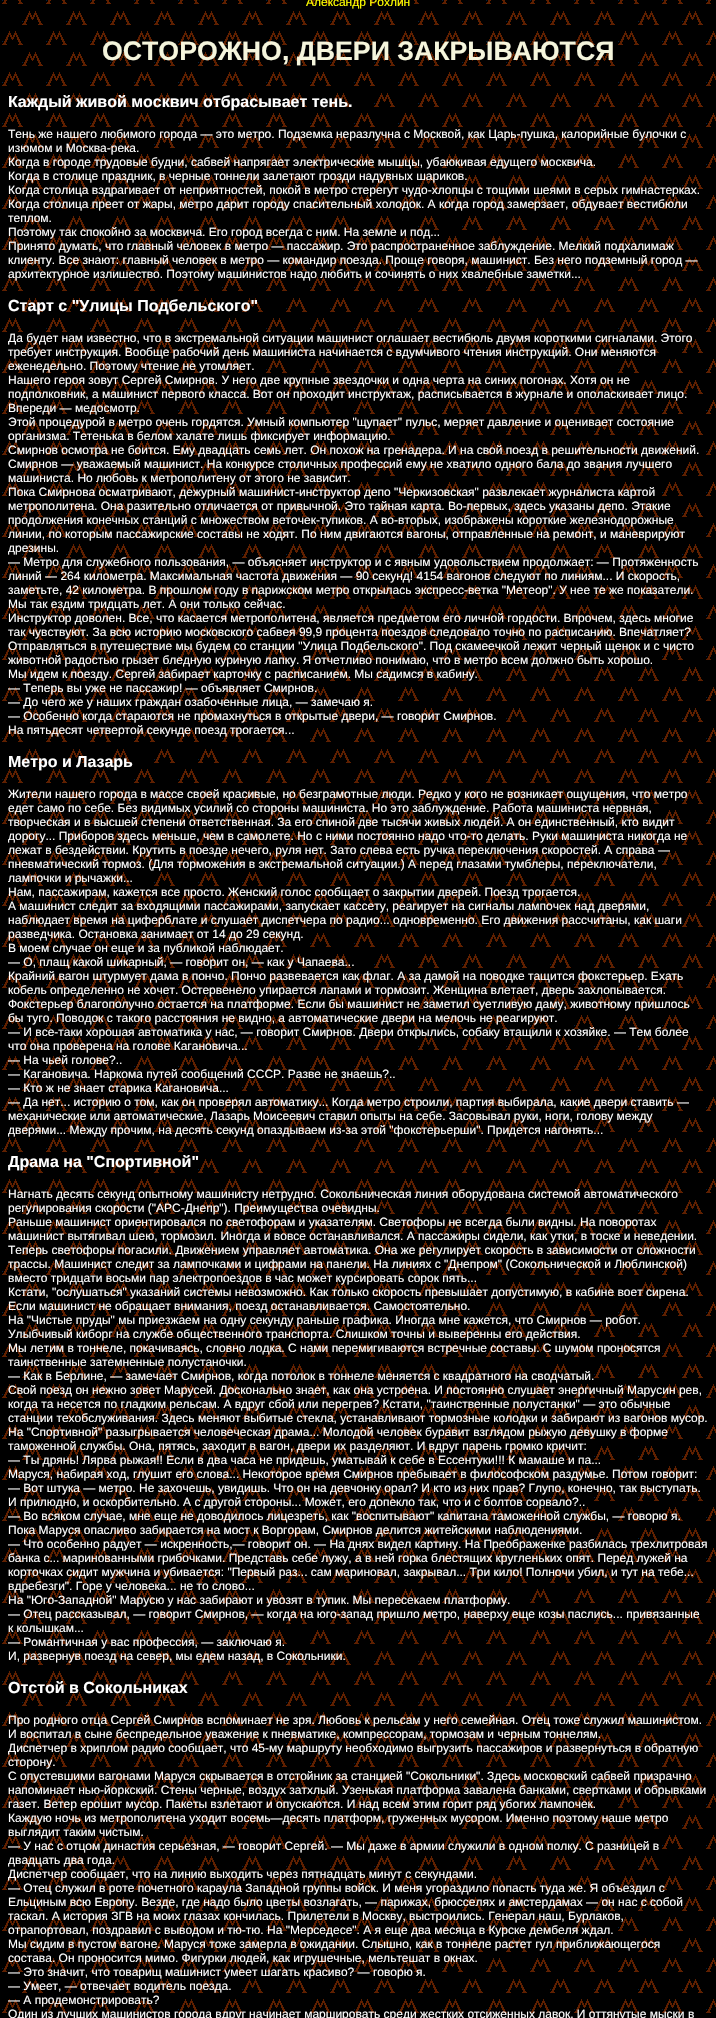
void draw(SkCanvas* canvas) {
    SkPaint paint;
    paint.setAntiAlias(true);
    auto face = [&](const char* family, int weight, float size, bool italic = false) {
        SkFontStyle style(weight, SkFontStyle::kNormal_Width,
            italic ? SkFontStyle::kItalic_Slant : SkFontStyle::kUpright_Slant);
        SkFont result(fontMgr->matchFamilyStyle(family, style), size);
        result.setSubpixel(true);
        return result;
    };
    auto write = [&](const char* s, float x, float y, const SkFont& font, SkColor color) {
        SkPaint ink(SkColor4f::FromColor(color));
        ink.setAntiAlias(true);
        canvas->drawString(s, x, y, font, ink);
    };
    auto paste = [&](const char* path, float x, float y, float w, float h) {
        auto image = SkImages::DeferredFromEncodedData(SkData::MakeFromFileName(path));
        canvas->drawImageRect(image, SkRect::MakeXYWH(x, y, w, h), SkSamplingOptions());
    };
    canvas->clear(SK_ColorBLACK);
    paste("pic1.png", 2, 0, 714, 2013);
    auto kFont1 = face("Liberation Sans", 400, 12);
    write("Александр Рохлин", 306, 6, kFont1, SkColorSetRGB(255, 255, 0));
    auto kFont2 = face("Liberation Sans", 700, 26.7f);
    write("ОСТОРОЖНО, ДВЕРИ ЗАКРЫВАЮТСЯ", 102, 60, kFont2, SkColorSetRGB(245, 245, 220));
    auto kFont3 = face("Liberation Sans", 700, 16);
    write("Каждый живой москвич отбрасывает тень.", 8, 107, kFont3, SK_ColorWHITE);
    write("Тень же нашего любимого города — это метро. Подземка неразлучна с Москвой, как Царь-пушка, калорийные булочки с", 8, 138, kFont1, SK_ColorWHITE);
    write("изюмом и Москва-река.", 8, 152, kFont1, SK_ColorWHITE);
    write("Когда в городе трудовые будни, сабвей напрягает электрические мышцы, убаюкивая едущего москвича.", 8, 166, kFont1, SK_ColorWHITE);
    write("Когда в столице праздник, в черные тоннели залетают грозди надувных шариков.", 8, 180, kFont1, SK_ColorWHITE);
    write("Когда столица вздрагивает от неприятностей, покой в метро стерегут чудо-хлопцы с тощими шеями в серых гимнастерках.", 8, 194, kFont1, SK_ColorWHITE);
    write("Когда столица преет от жары, метро дарит городу спасительный холодок. А когда город замерзает, обдувает вестибюли", 8, 208, kFont1, SK_ColorWHITE);
    write("теплом.", 8, 222, kFont1, SK_ColorWHITE);
    write("Поэтому так спокойно за москвича. Его город всегда с ним. На земле и под...", 8, 236, kFont1, SK_ColorWHITE);
    write("Принято думать, что главный человек в метро — пассажир. Это распространенное заблуждение. Мелкий подхалимаж", 8, 250, kFont1, SK_ColorWHITE);
    write("клиенту. Все знают: главный человек в метро — командир поезда. Проще говоря, машинист. Без него подземный город —", 8, 264, kFont1, SK_ColorWHITE);
    write("архитектурное излишество. Поэтому машинистов надо любить и сочинять о них хвалебные заметки...", 8, 278, kFont1, SK_ColorWHITE);
    write("Старт с \"Улицы Подбельского\"", 8, 311, kFont3, SK_ColorWHITE);
    write("Да будет нам известно, что в экстремальной ситуации машинист оглашает вестибюль двумя короткими сигналами. Этого", 8, 342, kFont1, SK_ColorWHITE);
    write("требует инструкция. Вообще рабочий день машиниста начинается с вдумчивого чтения инструкций. Они меняются", 8, 356, kFont1, SK_ColorWHITE);
    write("еженедельно. Поэтому чтение не утомляет.", 8, 370, kFont1, SK_ColorWHITE);
    write("Нашего героя зовут Сергей Смирнов. У него две крупные звездочки и одна черта на синих погонах. Хотя он не", 8, 384, kFont1, SK_ColorWHITE);
    write("подполковник, а машинист первого класса. Вот он проходит инструктаж, расписывается в журнале и ополаскивает лицо.", 8, 398, kFont1, SK_ColorWHITE);
    write("Впереди — медосмотр.", 8, 412, kFont1, SK_ColorWHITE);
    write("Этой процедурой в метро очень гордятся. Умный компьютер \"щупает\" пульс, меряет давление и оценивает состояние", 8, 426, kFont1, SK_ColorWHITE);
    write("организма. Тетенька в белом халате лишь фиксирует информацию.", 8, 440, kFont1, SK_ColorWHITE);
    write("Смирнов осмотра не боится. Ему двадцать семь лет. Он похож на гренадера. И на свой поезд в решительности движений.", 8, 454, kFont1, SK_ColorWHITE);
    write("Смирнов — уважаемый машинист. На конкурсе столичных профессий ему не хватило одного бала до звания лучшего", 8, 468, kFont1, SK_ColorWHITE);
    write("машиниста. Но любовь к метрополитену от этого не зависит.", 8, 482, kFont1, SK_ColorWHITE);
    write("Пока Смирнова осматривают, дежурный машинист-инструктор депо \"Черкизовская\" развлекает журналиста картой", 8, 496, kFont1, SK_ColorWHITE);
    write("метрополитена. Она разительно отличается от привычной. Это тайная карта. Во-первых, здесь указаны депо. Этакие", 8, 510, kFont1, SK_ColorWHITE);
    write("продолжения конечных станций с множеством веточек-тупиков. А во-вторых, изображены короткие железнодорожные", 8, 524, kFont1, SK_ColorWHITE);
    write("линии, по которым пассажирские составы не ходят. По ним двигаются вагоны, отправленные на ремонт, и маневрируют", 8, 538, kFont1, SK_ColorWHITE);
    write("дрезины.", 8, 552, kFont1, SK_ColorWHITE);
    write("— Метро для служебного пользования, — объясняет инструктор и с явным удовольствием продолжает: — Протяженность", 8, 566, kFont1, SK_ColorWHITE);
    write("линий — 264 километра. Максимальная частота движения — 90 секунд! 4154 вагонов следуют по линиям... И скорость,", 8, 580, kFont1, SK_ColorWHITE);
    write("заметьте, 42 километра. В прошлом году в парижском метро открылась экспресс-ветка \"Метеор\". У нее те же показатели.", 8, 594, kFont1, SK_ColorWHITE);
    write("Мы так ездим тридцать лет. А они только сейчас.", 8, 608, kFont1, SK_ColorWHITE);
    write("Инструктор доволен. Все, что касается метрополитена, является предметом его личной гордости. Впрочем, здесь многие", 8, 622, kFont1, SK_ColorWHITE);
    write("так чувствуют. За всю историю московского сабвея 99,9 процента поездов следовало точно по расписанию. Впечатляет?", 8, 636, kFont1, SK_ColorWHITE);
    write("Отправляться в путешествие мы будем со станции \"Улица Подбельского\". Под скамеечкой лежит черный щенок и с чисто", 8, 650, kFont1, SK_ColorWHITE);
    write("животной радостью грызет бледную куриную лапку. Я отчетливо понимаю, что в метро всем должно быть хорошо.", 8, 664, kFont1, SK_ColorWHITE);
    write("Мы идем к поезду. Сергей забирает карточку с расписанием. Мы садимся в кабину.", 8, 678, kFont1, SK_ColorWHITE);
    write("— Теперь вы уже не пассажир! — объявляет Смирнов.", 8, 692, kFont1, SK_ColorWHITE);
    write("— До чего же у наших граждан озабоченные лица, — замечаю я.", 8, 706, kFont1, SK_ColorWHITE);
    write("— Особенно когда стараются не промахнуться в открытые двери, — говорит Смирнов.", 8, 720, kFont1, SK_ColorWHITE);
    write("На пятьдесят четвертой секунде поезд трогается...", 8, 734, kFont1, SK_ColorWHITE);
    write("Метро и Лазарь", 8, 767, kFont3, SK_ColorWHITE);
    write("Жители нашего города в массе своей красивые, но безграмотные люди. Редко у кого не возникает ощущения, что метро", 8, 798, kFont1, SK_ColorWHITE);
    write("едет само по себе. Без видимых усилий со стороны машиниста. Но это заблуждение. Работа машиниста нервная,", 8, 812, kFont1, SK_ColorWHITE);
    write("творческая и в высшей степени ответственная. За его спиной две тысячи живых людей. А он единственный, кто видит", 8, 826, kFont1, SK_ColorWHITE);
    write("дорогу... Приборов здесь меньше, чем в самолете. Но с ними постоянно надо что-то делать. Руки машиниста никогда не", 8, 840, kFont1, SK_ColorWHITE);
    write("лежат в бездействии. Крутить в поезде нечего, руля нет. Зато слева есть ручка переключения скоростей. А справа —", 8, 854, kFont1, SK_ColorWHITE);
    write("пневматический тормоз. (Для торможения в экстремальной ситуации.) А перед глазами тумблеры, переключатели,", 8, 868, kFont1, SK_ColorWHITE);
    write("лампочки и рычажки...", 8, 882, kFont1, SK_ColorWHITE);
    write("Нам, пассажирам, кажется все просто. Женский голос сообщает о закрытии дверей. Поезд трогается.", 8, 896, kFont1, SK_ColorWHITE);
    write("А машинист следит за входящими пассажирами, запускает кассету, реагирует на сигналы лампочек над дверями,", 8, 910, kFont1, SK_ColorWHITE);
    write("наблюдает время на циферблате и слушает диспетчера по радио... одновременно. Его движения рассчитаны, как шаги", 8, 924, kFont1, SK_ColorWHITE);
    write("разведчика. Остановка занимает от 14 до 29 секунд.", 8, 938, kFont1, SK_ColorWHITE);
    write("В моем случае он еще и за публикой наблюдает.", 8, 952, kFont1, SK_ColorWHITE);
    write("— О, плащ какой шикарный, — говорит он, — как у Чапаева...", 8, 966, kFont1, SK_ColorWHITE);
    write("Крайний вагон штурмует дама в пончо. Пончо развевается как флаг. А за дамой на поводке тащится фокстерьер. Ехать", 8, 980, kFont1, SK_ColorWHITE);
    write("кобель определенно не хочет. Остервенело упирается лапами и тормозит. Женщина влетает, дверь захлопывается.", 8, 994, kFont1, SK_ColorWHITE);
    write("Фокстерьер благополучно остается на платформе. Если бы машинист не заметил суетливую даму, животному пришлось", 8, 1008, kFont1, SK_ColorWHITE);
    write("бы туго. Поводок с такого расстояния не видно, а автоматические двери на мелочь не реагируют.", 8, 1022, kFont1, SK_ColorWHITE);
    write("— И все-таки хорошая автоматика у нас, — говорит Смирнов. Двери открылись, собаку втащили к хозяйке. — Тем более", 8, 1036, kFont1, SK_ColorWHITE);
    write("что она проверена на голове Кагановича...", 8, 1050, kFont1, SK_ColorWHITE);
    write("— На чьей голове?..", 8, 1064, kFont1, SK_ColorWHITE);
    write("— Кагановича. Наркома путей сообщений СССР. Разве не знаешь?..", 8, 1078, kFont1, SK_ColorWHITE);
    write("— Кто ж не знает старика Кагановича...", 8, 1092, kFont1, SK_ColorWHITE);
    write("— Да нет... историю о том, как он проверял автоматику... Когда метро строили, партия выбирала, какие двери ставить —", 8, 1106, kFont1, SK_ColorWHITE);
    write("механические или автоматические. Лазарь Моисеевич ставил опыты на себе. Засовывал руки, ноги, голову между", 8, 1120, kFont1, SK_ColorWHITE);
    write("дверями... Между прочим, на десять секунд опаздываем из-за этой \"фокстерьерши\". Придется нагонять...", 8, 1134, kFont1, SK_ColorWHITE);
    write("Драма на \"Спортивной\"", 8, 1167, kFont3, SK_ColorWHITE);
    write("Нагнать десять секунд опытному машинисту нетрудно. Сокольническая линия оборудована системой автоматического", 8, 1198, kFont1, SK_ColorWHITE);
    write("регулирования скорости (\"АРС-Днепр\"). Преимущества очевидны.", 8, 1212, kFont1, SK_ColorWHITE);
    write("Раньше машинист ориентировался по светофорам и указателям. Светофоры не всегда были видны. На поворотах", 8, 1226, kFont1, SK_ColorWHITE);
    write("машинист вытягивал шею, тормозил. Иногда и вовсе останавливался. А пассажиры сидели, как утки, в тоске и неведении.", 8, 1240, kFont1, SK_ColorWHITE);
    write("Теперь светофоры погасили. Движением управляет автоматика. Она же регулирует скорость в зависимости от сложности", 8, 1254, kFont1, SK_ColorWHITE);
    write("трассы. Машинист следит за лампочками и цифрами на панели. На линиях с \"Днепром\" (Сокольнической и Люблинской)", 8, 1268, kFont1, SK_ColorWHITE);
    write("вместо тридцати восьми пар электропоездов в час может курсировать сорок пять...", 8, 1282, kFont1, SK_ColorWHITE);
    write("Кстати, \"ослушаться\" указаний системы невозможно. Как только скорость превышает допустимую, в кабине воет сирена.", 8, 1296, kFont1, SK_ColorWHITE);
    write("Если машинист не обращает внимания, поезд останавливается. Самостоятельно.", 8, 1310, kFont1, SK_ColorWHITE);
    write("На \"Чистые пруды\" мы приезжаем на одну секунду раньше графика. Иногда мне кажется, что Смирнов — робот.", 8, 1324, kFont1, SK_ColorWHITE);
    write("Улыбчивый киборг на службе общественного транспорта. Слишком точны и выверенны его действия.", 8, 1338, kFont1, SK_ColorWHITE);
    write("Мы летим в тоннеле, покачиваясь, словно лодка. С нами перемигиваются встречные составы. С шумом проносятся", 8, 1352, kFont1, SK_ColorWHITE);
    write("таинственные затемненные полустаночки.", 8, 1366, kFont1, SK_ColorWHITE);
    write("— Как в Берлине, — замечает Смирнов, когда потолок в тоннеле меняется с квадратного на сводчатый.", 8, 1380, kFont1, SK_ColorWHITE);
    write("Свой поезд он нежно зовет Марусей. Досконально знает, как она устроена. И постоянно слушает энергичный Марусин рев,", 8, 1394, kFont1, SK_ColorWHITE);
    write("когда та несется по гладким рельсам. А вдруг сбой или перегрев? Кстати, \"таинственные полустанки\" — это обычные", 8, 1408, kFont1, SK_ColorWHITE);
    write("станции техобслуживания. Здесь меняют выбитые стекла, устанавливают тормозные колодки и забирают из вагонов мусор.", 8, 1422, kFont1, SK_ColorWHITE);
    write("На \"Спортивной\" разыгрывается человеческая драма... Молодой человек буравит взглядом рыжую девушку в форме", 8, 1436, kFont1, SK_ColorWHITE);
    write("таможенной службы. Она, пятясь, заходит в вагон, двери их разделяют. И вдруг парень громко кричит:", 8, 1450, kFont1, SK_ColorWHITE);
    write("— Ты дрянь! Лярва рыжая!! Если в два часа не придешь, уматывай к себе в Ессентуки!!! К мамаше и па...", 8, 1464, kFont1, SK_ColorWHITE);
    write("Маруся, набирая ход, глушит его слова... Некоторое время Смирнов пребывает в философском раздумье. Потом говорит:", 8, 1478, kFont1, SK_ColorWHITE);
    write("— Вот штука — метро. Не захочешь, увидишь. Что он на девчонку орал? И кто из них прав? Глупо, конечно, так выступать.", 8, 1492, kFont1, SK_ColorWHITE);
    write("И прилюдно, и оскорбительно. А с другой стороны... Может, его допекло так, что и с болтов сорвало?..", 8, 1506, kFont1, SK_ColorWHITE);
    write("— Во всяком случае, мне еще не доводилось лицезреть, как \"воспитывают\" капитана таможенной службы, — говорю я.", 8, 1520, kFont1, SK_ColorWHITE);
    write("Пока Маруся опасливо забирается на мост к Воргорам, Смирнов делится житейскими наблюдениями.", 8, 1534, kFont1, SK_ColorWHITE);
    write("— Что особенно радует — искренность,— говорит он. — На днях видел картину. На Преображенке разбилась трехлитровая", 8, 1548, kFont1, SK_ColorWHITE);
    write("банка с... маринованными грибочками. Представь себе лужу, а в ней горка блестящих кругленьких опят. Перед лужей на", 8, 1562, kFont1, SK_ColorWHITE);
    write("корточках сидит мужчина и убивается: \"Первый раз... сам мариновал, закрывал... Три кило! Полночи убил, и тут на тебе...", 8, 1576, kFont1, SK_ColorWHITE);
    write("вдребезги\". Горе у человека... не то слово...", 8, 1590, kFont1, SK_ColorWHITE);
    write("На \"Юго-Западной\" Марусю у нас забирают и увозят в тупик. Мы пересекаем платформу.", 8, 1604, kFont1, SK_ColorWHITE);
    write("— Отец рассказывал, — говорит Смирнов, — когда на юго-запад пришло метро, наверху еще козы паслись... привязанные", 8, 1618, kFont1, SK_ColorWHITE);
    write("к колышкам...", 8, 1632, kFont1, SK_ColorWHITE);
    write("— Романтичная у вас профессия, — заключаю я.", 8, 1646, kFont1, SK_ColorWHITE);
    write("И, развернув поезд на север, мы едем назад, в Сокольники.", 8, 1660, kFont1, SK_ColorWHITE);
    write("Отстой в Сокольниках", 8, 1693, kFont3, SK_ColorWHITE);
    write("Про родного отца Сергей Смирнов вспоминает не зря. Любовь к рельсам у него семейная. Отец тоже служил машинистом.", 8, 1724, kFont1, SK_ColorWHITE);
    write("И воспитал в сыне беспредельное уважение к пневматике, компрессорам, тормозам и черным тоннелям.", 8, 1738, kFont1, SK_ColorWHITE);
    write("Диспетчер в хриплом радио сообщает, что 45-му маршруту необходимо выгрузить пассажиров и развернуться в обратную", 8, 1752, kFont1, SK_ColorWHITE);
    write("сторону.", 8, 1766, kFont1, SK_ColorWHITE);
    write("С опустевшими вагонами Маруся скрывается в отстойник за станцией \"Сокольники\". Здесь московский сабвей призрачно", 8, 1780, kFont1, SK_ColorWHITE);
    write("напоминает нью-йоркский. Стены черные, воздух затхлый. Узенькая платформа завалена банками, свертками и обрывками", 8, 1794, kFont1, SK_ColorWHITE);
    write("газет. Ветер ерошит мусор. Пакеты взлетают и опускаются. И над всем этим горит ряд убогих лампочек.", 8, 1808, kFont1, SK_ColorWHITE);
    write("Каждую ночь из метрополитена уходит восемь—десять платформ, груженных мусором. Именно поэтому наше метро", 8, 1822, kFont1, SK_ColorWHITE);
    write("выглядит таким чистым.", 8, 1836, kFont1, SK_ColorWHITE);
    write("— У нас с отцом династия серьезная, — говорит Сергей. — Мы даже в армии служили в одном полку. С разницей в", 8, 1850, kFont1, SK_ColorWHITE);
    write("двадцать два года.", 8, 1864, kFont1, SK_ColorWHITE);
    write("Диспетчер сообщает, что на линию выходить через пятнадцать минут с секундами.", 8, 1878, kFont1, SK_ColorWHITE);
    write("— Отец служил в роте почетного караула Западной группы войск. И меня угораздило попасть туда же. Я объездил с", 8, 1892, kFont1, SK_ColorWHITE);
    write("Ельциным всю Европу. Везде, где надо было цветы возлагать, — парижах, брюсселях и амстердамах — он нас с собой", 8, 1906, kFont1, SK_ColorWHITE);
    write("таскал. А история ЗГВ на моих глазах кончилась. Прилетели в Москву, выстроились. Генерал наш, Бурлаков,", 8, 1920, kFont1, SK_ColorWHITE);
    write("отрапортовал, поздравил с выводом и тю-тю. На \"Мерседесе\". А я еще два месяца в Курске дембеля ждал.", 8, 1934, kFont1, SK_ColorWHITE);
    write("Мы сидим в пустом вагоне. Маруся тоже замерла в ожидании. Слышно, как в тоннеле растет гул приближающегося", 8, 1948, kFont1, SK_ColorWHITE);
    write("состава. Он проносится мимо. Фигурки людей, как игрушечные, мельтешат в окнах.", 8, 1962, kFont1, SK_ColorWHITE);
    write("— Это значит, что товарищ машинист умеет шагать красиво? — говорю я.", 8, 1976, kFont1, SK_ColorWHITE);
    write("— Умеет, — отвечает водитель поезда.", 8, 1990, kFont1, SK_ColorWHITE);
    write("— А продемонстрировать?", 8, 2004, kFont1, SK_ColorWHITE);
    write("Один из лучших машинистов города вдруг начинает маршировать среди жестких отсиженных лавок. И оттянутые мыски в", 8, 2018, kFont1, SK_ColorWHITE);
}
